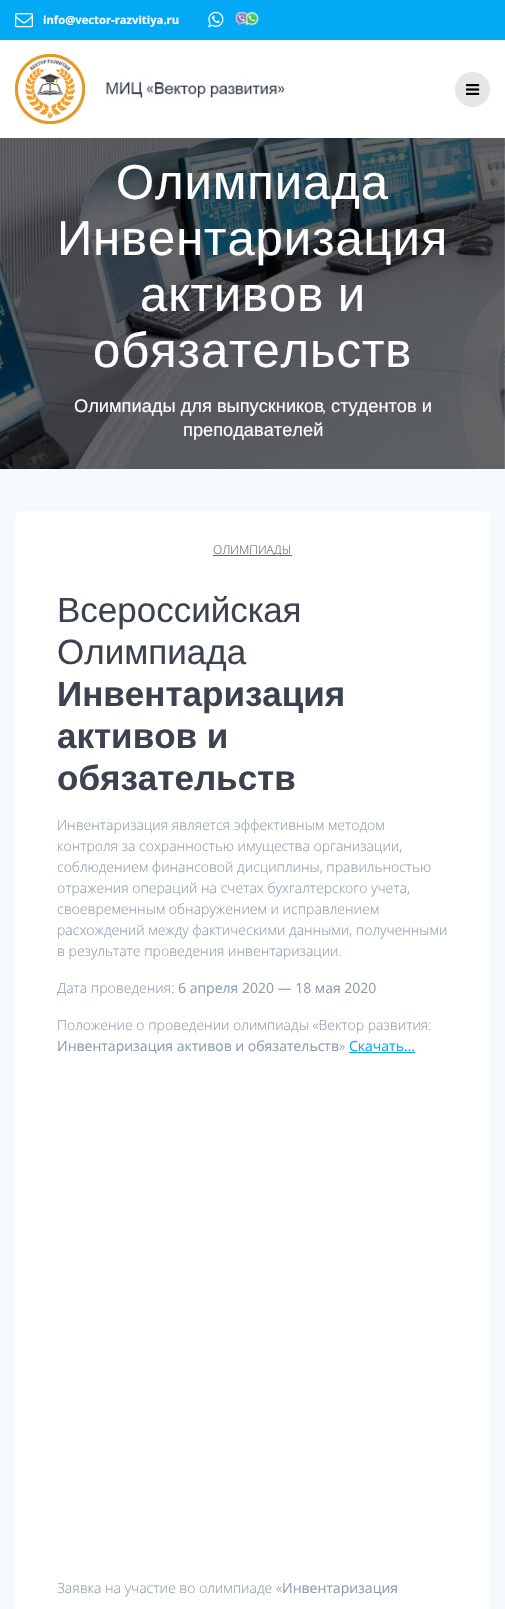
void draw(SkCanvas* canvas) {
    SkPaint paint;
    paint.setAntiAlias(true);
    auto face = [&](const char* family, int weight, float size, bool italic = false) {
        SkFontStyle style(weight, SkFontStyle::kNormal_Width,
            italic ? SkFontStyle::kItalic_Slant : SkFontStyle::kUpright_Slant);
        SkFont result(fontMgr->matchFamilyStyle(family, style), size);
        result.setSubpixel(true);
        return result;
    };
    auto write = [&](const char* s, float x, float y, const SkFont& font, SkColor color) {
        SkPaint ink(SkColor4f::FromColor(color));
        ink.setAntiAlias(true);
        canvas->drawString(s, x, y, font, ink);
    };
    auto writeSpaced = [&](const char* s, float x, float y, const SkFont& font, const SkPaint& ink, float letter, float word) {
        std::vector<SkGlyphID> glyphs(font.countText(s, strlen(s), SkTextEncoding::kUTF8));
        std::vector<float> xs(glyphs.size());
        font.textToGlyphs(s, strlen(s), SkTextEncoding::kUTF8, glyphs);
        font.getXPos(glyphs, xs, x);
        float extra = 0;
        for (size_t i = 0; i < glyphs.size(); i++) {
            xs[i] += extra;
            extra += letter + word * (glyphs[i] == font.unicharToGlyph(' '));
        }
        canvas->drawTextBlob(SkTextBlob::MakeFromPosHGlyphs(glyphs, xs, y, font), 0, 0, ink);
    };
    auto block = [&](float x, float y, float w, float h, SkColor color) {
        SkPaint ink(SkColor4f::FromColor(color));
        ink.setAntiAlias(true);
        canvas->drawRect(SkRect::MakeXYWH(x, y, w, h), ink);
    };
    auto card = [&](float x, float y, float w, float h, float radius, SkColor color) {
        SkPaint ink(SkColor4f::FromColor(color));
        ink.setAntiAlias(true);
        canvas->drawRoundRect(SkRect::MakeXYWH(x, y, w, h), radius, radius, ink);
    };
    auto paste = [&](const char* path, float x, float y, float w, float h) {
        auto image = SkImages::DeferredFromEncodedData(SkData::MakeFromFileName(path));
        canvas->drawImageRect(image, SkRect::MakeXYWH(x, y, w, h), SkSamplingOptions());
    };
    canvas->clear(SK_ColorWHITE);
    block(0, 0, 505, 40, SkColorSetRGB(3, 169, 244));
    paste("pic1.png", 15, 13, 18, 15);
    auto kFont1 = face("Open Sans", 700, 11.25f);
    write("info@vector-razvitiya.ru", 43, 24, kFont1, SK_ColorWHITE);
    paste("pic2.png", 208, 11, 16, 17);
    paste("pic3.png", 235, 11, 24, 15);
    paste("pic4.png", 15, 54, 270, 70);
    paint.setColor(SkColorSetRGB(230, 230, 230));
    canvas->drawCircle(472.5f, 89.5f, 17.5f, paint);
    paste("pic5.png", 466, 84, 14, 11);
    paste("pic6.png", 0, 138, 505, 331);
    auto kFont2 = face("Liberation Sans", 400, 49);
    paint.setColor(SK_ColorWHITE);
    writeSpaced("Олимпиада", 116, 199, kFont2, paint, 0.9f, 0);
    writeSpaced("Инвентаризация", 57, 255, kFont2, paint, 0.9f, 0);
    writeSpaced("активов и", 140, 311, kFont2, paint, 0.9f, -1);
    writeSpaced("обязательств", 93, 367, kFont2, paint, 0.9f, 0);
    auto kFont3 = face("Liberation Sans", 400, 18.25f);
    write("Олимпиады для выпускников", 74, 412, kFont3, SK_ColorWHITE);
    auto kFont4 = face("Muli", 300, 18.25f);
    write(",", 322, 412, kFont4, SK_ColorWHITE);
    write("студентов и", 331, 412, kFont3, SK_ColorWHITE);
    write("преподавателей", 183, 436, kFont3, SK_ColorWHITE);
    block(0, 469, 505, 1140, SkColorSetRGB(245, 250, 253));
    card(15, 511, 475, 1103, 5, SK_ColorWHITE);
    block(213, 555, 79, 1, SkColorSetRGB(102, 102, 102));
    auto kFont5 = face("Open Sans", 300, 12);
    write("ОЛИМПИАДЫ", 213, 554, kFont5, SkColorSetRGB(102, 102, 102));
    auto kFont6 = face("Liberation Sans", 400, 35);
    write("Всероссийская", 57, 622, kFont6, SkColorSetRGB(60, 66, 79));
    write("Олимпиада", 57, 664, kFont6, SkColorSetRGB(60, 66, 79));
    auto kFont7 = face("Liberation Sans", 700, 35);
    write("Инвентаризация", 57, 706, kFont7, SkColorSetRGB(60, 66, 79));
    write("активов и", 57, 748, kFont7, SkColorSetRGB(60, 66, 79));
    write("обязательств", 57, 790, kFont7, SkColorSetRGB(60, 66, 79));
    auto kFont8 = face("Open Sans", 300, 14);
    write("Инвентаризация является эффективным методом", 57, 830, kFont8, SkColorSetRGB(142, 157, 174));
    write("контроля за сохранностью имущества организации,", 57, 851, kFont8, SkColorSetRGB(142, 157, 174));
    write("соблюдением финансовой дисциплины, правильностью", 57, 872, kFont8, SkColorSetRGB(142, 157, 174));
    write("отражения операций на счетах бухгалтерского учета,", 57, 893, kFont8, SkColorSetRGB(142, 157, 174));
    write("своевременным обнаружением и исправлением", 57, 914, kFont8, SkColorSetRGB(142, 157, 174));
    write("расхождений между фактическими данными, полученными", 57, 935, kFont8, SkColorSetRGB(142, 157, 174));
    write("в результате проведения инвентаризации.", 57, 956, kFont8, SkColorSetRGB(142, 157, 174));
    write("Дата проведения:", 57, 993, kFont8, SkColorSetRGB(142, 157, 174));
    auto kFont9 = face("Open Sans", 400, 14);
    write("6 апреля 2020 — 18 мая 2020", 178, 993, kFont9, SkColorSetRGB(142, 157, 174));
    write("Положение о проведении олимпиады «Вектор развития:", 57, 1030, kFont8, SkColorSetRGB(142, 157, 174));
    write("Инвентаризация активов и обязательств", 57, 1051, kFont9, SkColorSetRGB(142, 157, 174));
    write("»", 339, 1051, kFont8, SkColorSetRGB(142, 157, 174));
    write("Скачать…", 349, 1051, kFont9, SkColorSetRGB(3, 169, 244));
    block(349, 1052, 66, 1, SkColorSetRGB(3, 169, 244));
    write("Заявка на участие во олимпиаде «", 57, 1593, kFont8, SkColorSetRGB(142, 157, 174));
    write("Инвентаризация", 282, 1593, kFont9, SkColorSetRGB(142, 157, 174));
}
